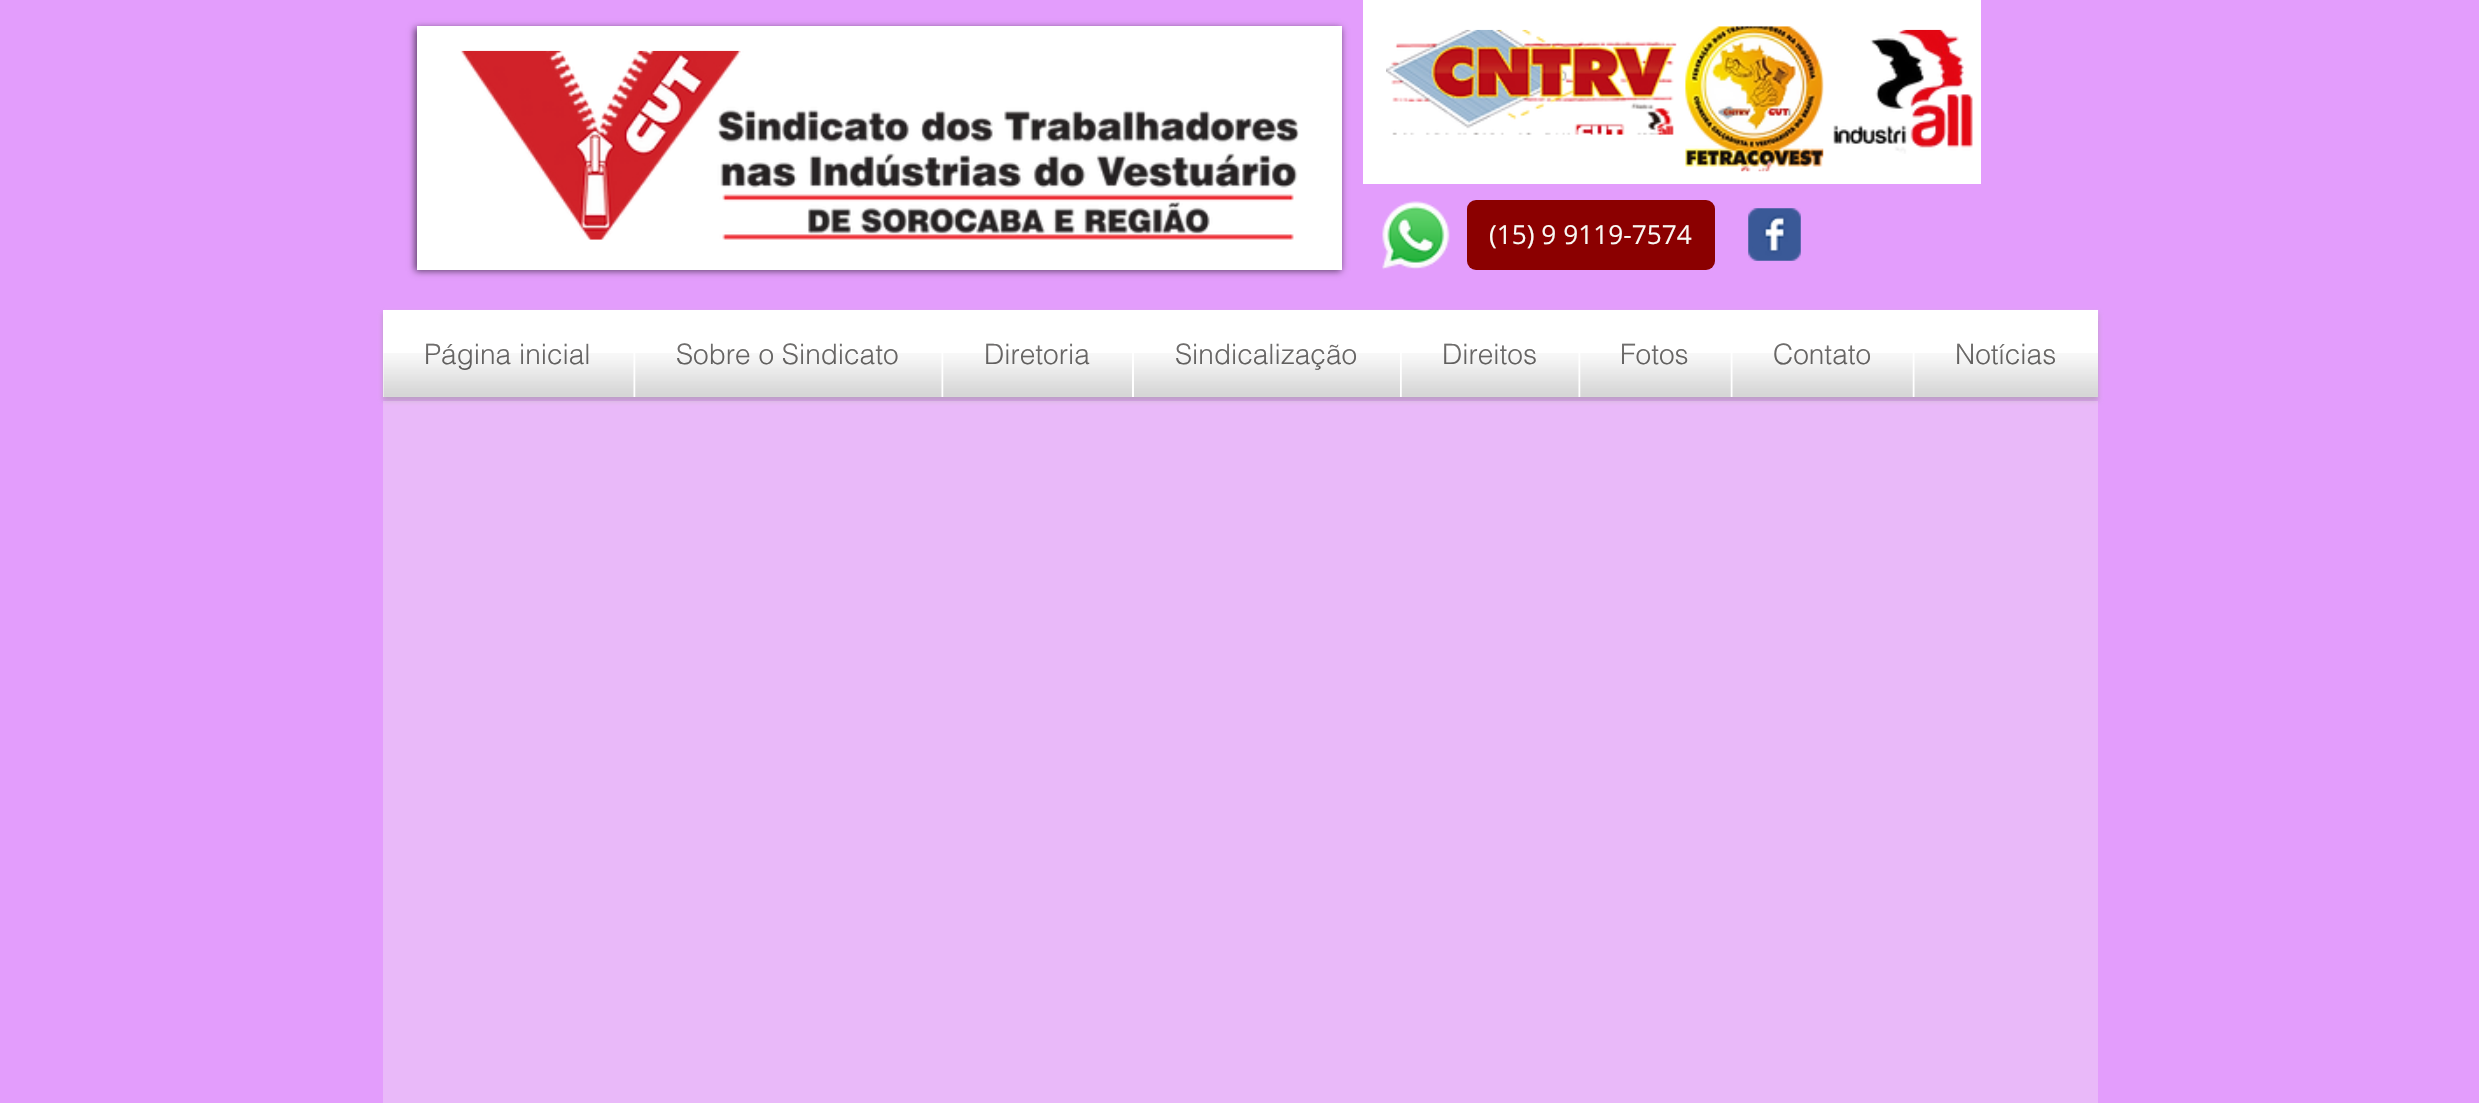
void draw(SkCanvas* canvas) {
    SkPaint paint;
    paint.setAntiAlias(true);
    auto face = [&](const char* family, int weight, float size, bool italic = false) {
        SkFontStyle style(weight, SkFontStyle::kNormal_Width,
            italic ? SkFontStyle::kItalic_Slant : SkFontStyle::kUpright_Slant);
        SkFont result(fontMgr->matchFamilyStyle(family, style), size);
        result.setSubpixel(true);
        return result;
    };
    auto write = [&](const char* s, float x, float y, const SkFont& font, SkColor color) {
        SkPaint ink(SkColor4f::FromColor(color));
        ink.setAntiAlias(true);
        canvas->drawString(s, x, y, font, ink);
    };
    auto block = [&](float x, float y, float w, float h, SkColor color) {
        SkPaint ink(SkColor4f::FromColor(color));
        ink.setAntiAlias(true);
        canvas->drawRect(SkRect::MakeXYWH(x, y, w, h), ink);
    };
    auto card = [&](float x, float y, float w, float h, float radius, SkColor color) {
        SkPaint ink(SkColor4f::FromColor(color));
        ink.setAntiAlias(true);
        canvas->drawRoundRect(SkRect::MakeXYWH(x, y, w, h), radius, radius, ink);
    };
    auto paste = [&](const char* path, float x, float y, float w, float h) {
        auto image = SkImages::DeferredFromEncodedData(SkData::MakeFromFileName(path));
        canvas->drawImageRect(image, SkRect::MakeXYWH(x, y, w, h), SkSamplingOptions());
    };
    canvas->clear(SkColorSetRGB(227, 157, 252));
    paint.setColor(SkColorSetARGB(153, 0, 0, 0));
    paint.setMaskFilter(SkMaskFilter::MakeBlur(kNormal_SkBlurStyle, 3.5f));
    canvas->drawRect(SkRect::MakeXYWH(415, 28, 926, 243), paint);
    paint.setMaskFilter(nullptr);
    block(417, 26, 925, 244, SK_ColorWHITE);
    paste("pic1.png", 460, 50, 839, 190);
    block(1363, 0, 618, 184, SK_ColorWHITE);
    paste("pic2.png", 1386, 29, 291, 106);
    paste("pic3.png", 1685, 26, 139, 146);
    paste("pic4.png", 1833, 29, 140, 125);
    paste("pic5.png", 1382, 201, 68, 69);
    card(1467, 200, 248, 70, 9, SkColorSetRGB(139, 0, 0));
    auto kFont1 = face("Open Sans", 400, 26.25f);
    write("(15) 9 9119-7574", 1489, 244, kFont1, SkColorSetRGB(249, 248, 243));
    paste("pic6.png", 1748, 208, 53, 53);
    paint.setColor(SkColorSetARGB(153, 162, 158, 158));
    paint.setMaskFilter(SkMaskFilter::MakeBlur(kNormal_SkBlurStyle, 2.5f));
    canvas->drawRect(SkRect::MakeXYWH(383, 313, 1715, 88), paint);
    paint.setMaskFilter(nullptr);
    paste("pic7.png", 384, 309, 1715, 12);
    block(383, 310, 1715, 87, SK_ColorWHITE);
    auto kFont2 = face("helvetica", 300, 28);
    write("Página inicial", 424, 364, kFont2, SkColorSetRGB(97, 95, 94));
    paste("pic8.png", 426, 344, 163, 21);
    paste("pic9.png", 383, 353, 251, 44);
    write("Sobre o Sindicato", 676, 364, kFont2, SkColorSetRGB(97, 95, 94));
    paste("pic10.png", 678, 343, 220, 21);
    paste("pic11.png", 635, 353, 307, 44);
    write("Diretoria", 984, 364, kFont2, SkColorSetRGB(97, 95, 94));
    paste("pic12.png", 986, 344, 103, 20);
    paste("pic13.png", 943, 353, 189, 44);
    write("Sindicalização", 1175, 364, kFont2, SkColorSetRGB(97, 95, 94));
    paste("pic14.png", 1176, 343, 180, 21);
    paste("pic15.png", 1134, 353, 266, 44);
    write("Direitos", 1442, 364, kFont2, SkColorSetRGB(97, 95, 94));
    paste("pic16.png", 1444, 344, 91, 20);
    paste("pic17.png", 1401, 353, 178, 44);
    write("Fotos", 1620, 364, kFont2, SkColorSetRGB(97, 95, 94));
    paste("pic18.png", 1622, 344, 65, 20);
    paste("pic19.png", 1580, 353, 151, 44);
    write("Contato", 1773, 364, kFont2, SkColorSetRGB(97, 95, 94));
    paste("pic20.png", 1774, 343, 96, 21);
    paste("pic21.png", 1732, 353, 181, 44);
    write("Notícias", 1955, 364, kFont2, SkColorSetRGB(97, 95, 94));
    paste("pic22.png", 1957, 344, 98, 20);
    paste("pic23.png", 1914, 353, 184, 44);
    block(383, 401, 1715, 702, SkColorSetARGB(77, 249, 248, 243));
}
